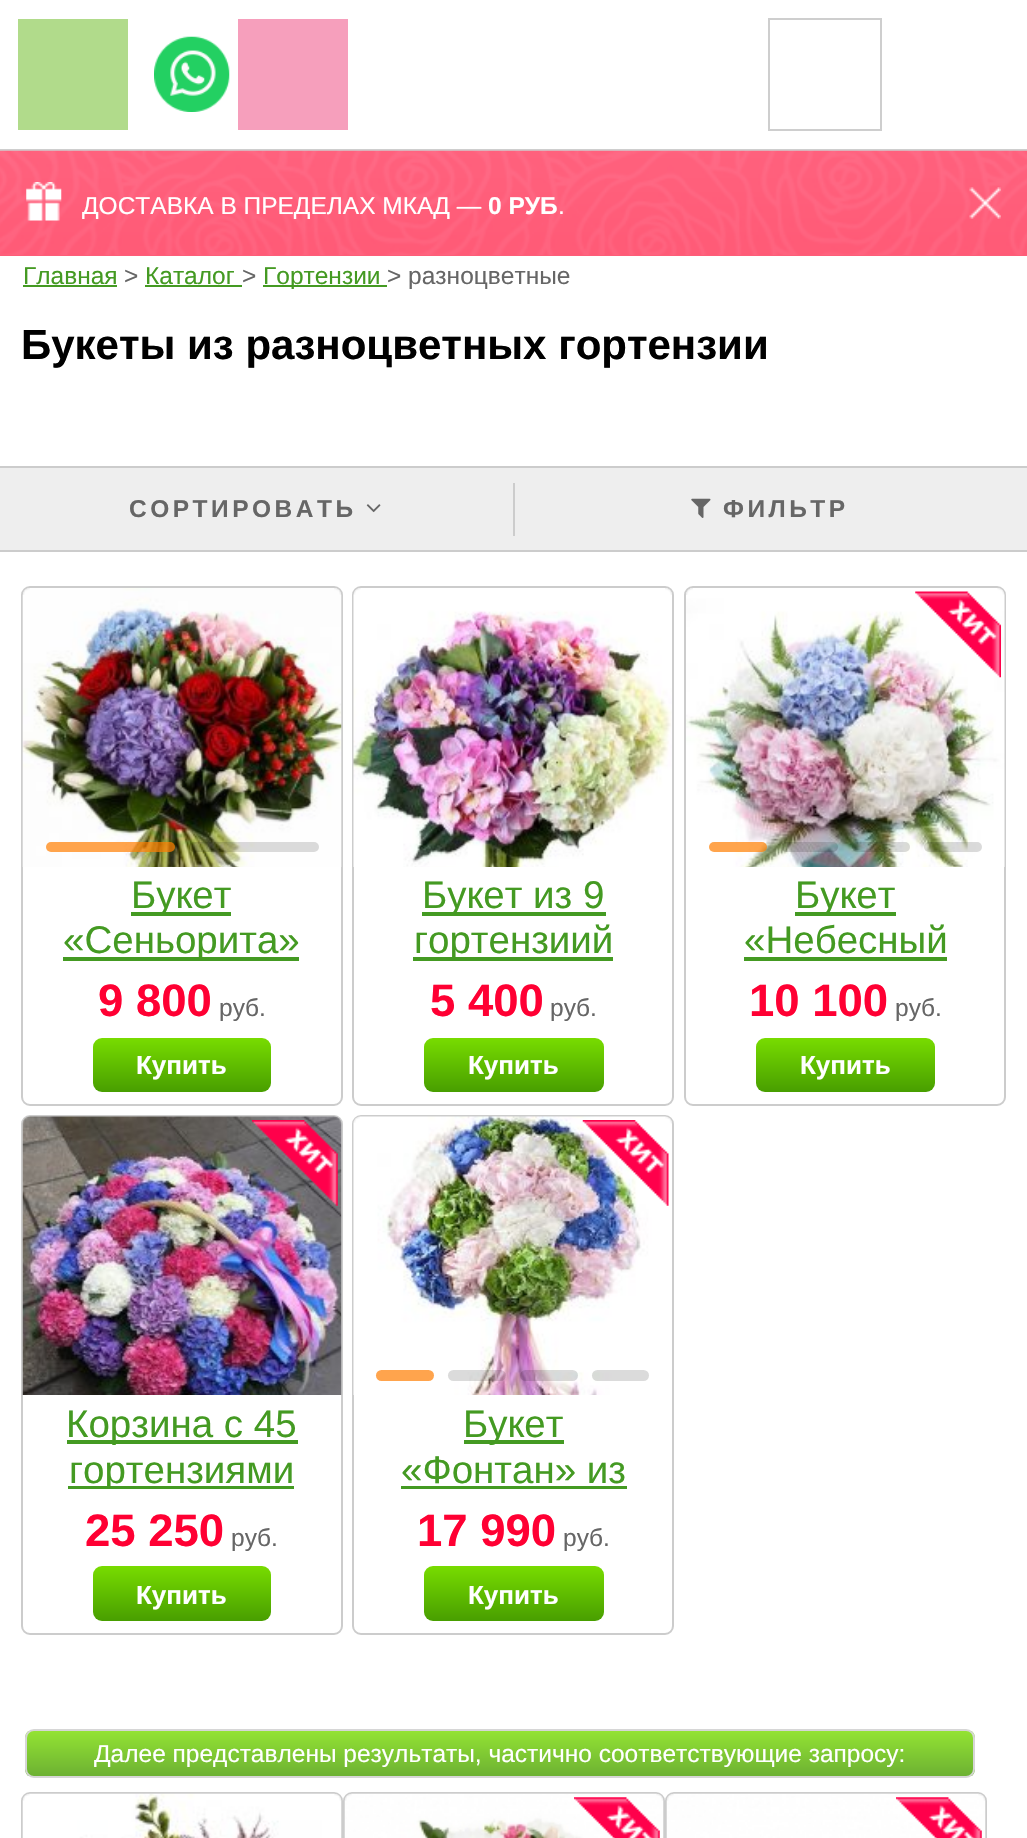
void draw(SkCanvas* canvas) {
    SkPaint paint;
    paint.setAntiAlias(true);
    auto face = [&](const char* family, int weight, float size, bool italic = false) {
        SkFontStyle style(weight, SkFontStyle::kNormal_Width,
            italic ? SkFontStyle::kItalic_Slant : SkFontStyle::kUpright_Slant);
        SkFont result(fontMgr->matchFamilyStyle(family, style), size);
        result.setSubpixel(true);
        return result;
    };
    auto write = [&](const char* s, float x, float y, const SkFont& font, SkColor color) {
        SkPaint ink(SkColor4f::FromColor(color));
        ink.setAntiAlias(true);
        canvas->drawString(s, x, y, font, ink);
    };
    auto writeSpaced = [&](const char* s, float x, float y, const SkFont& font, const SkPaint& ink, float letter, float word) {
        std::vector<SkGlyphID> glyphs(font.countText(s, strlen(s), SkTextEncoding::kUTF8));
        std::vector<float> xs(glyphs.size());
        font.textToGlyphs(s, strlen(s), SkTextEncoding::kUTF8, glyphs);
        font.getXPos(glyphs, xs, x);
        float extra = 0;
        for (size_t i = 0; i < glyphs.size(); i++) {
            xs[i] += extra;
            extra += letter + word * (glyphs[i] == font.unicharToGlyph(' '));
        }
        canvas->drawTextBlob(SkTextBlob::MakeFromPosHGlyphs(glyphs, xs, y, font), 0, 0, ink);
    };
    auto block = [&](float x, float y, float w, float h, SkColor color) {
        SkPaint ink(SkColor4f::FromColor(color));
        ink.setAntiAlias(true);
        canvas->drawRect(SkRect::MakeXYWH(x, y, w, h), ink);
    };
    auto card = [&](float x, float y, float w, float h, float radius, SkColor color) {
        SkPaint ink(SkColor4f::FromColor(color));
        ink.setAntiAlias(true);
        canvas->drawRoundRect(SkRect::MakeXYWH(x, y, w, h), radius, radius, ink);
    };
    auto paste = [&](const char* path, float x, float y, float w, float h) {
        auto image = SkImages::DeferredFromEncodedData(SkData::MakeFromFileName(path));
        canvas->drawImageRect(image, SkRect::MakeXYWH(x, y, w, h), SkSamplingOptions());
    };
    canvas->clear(SK_ColorWHITE);
    block(0, 149, 1027, 2, SkColorSetRGB(206, 206, 206));
    block(18, 19, 110, 111, SkColorSetRGB(177, 219, 139));
    paste("pic1.png", 154, 36, 76, 76);
    block(238, 19, 110, 111, SkColorSetRGB(246, 159, 188));
    paint.setStyle(SkPaint::kStroke_Style);
    paint.setStrokeWidth(2);
    paint.setColor(SkColorSetRGB(206, 206, 206));
    canvas->drawRect(SkRect::MakeXYWH(769, 19, 112, 111), paint);
    block(0, 255, 1027, 1, SkColorSetRGB(253, 94, 120));
    paste("pic2.png", 0, 150, 1027, 105);
    paste("pic3.png", 26, 182, 36, 39);
    auto kFont1 = face("Liberation Sans", 400, 24.5f);
    write("ДОСТАВКА В ПРЕДЕЛАХ МКАД —", 82, 214, kFont1, SK_ColorWHITE);
    auto kFont2 = face("Liberation Sans", 700, 24.5f);
    write("0 РУБ", 488, 214, kFont2, SK_ColorWHITE);
    write(".", 558, 214, kFont1, SK_ColorWHITE);
    paste("pic4.png", 969, 187, 32, 32);
    write("Главная", 23, 284, kFont1, SkColorSetRGB(68, 154, 34));
    block(23, 285, 94, 2, SkColorSetRGB(68, 154, 34));
    write(">", 124, 284, kFont1, SkColorSetRGB(102, 102, 102));
    write("Каталог", 145, 284, kFont1, SkColorSetRGB(68, 154, 34));
    block(145, 285, 97, 2, SkColorSetRGB(68, 154, 34));
    write(">", 242, 284, kFont1, SkColorSetRGB(102, 102, 102));
    block(263, 285, 124, 2, SkColorSetRGB(68, 154, 34));
    write("Гортензии", 263, 284, kFont1, SkColorSetRGB(68, 154, 34));
    write("> разноцветные", 387, 284, kFont1, SkColorSetRGB(102, 102, 102));
    auto kFont3 = face("Liberation Sans", 700, 42);
    write("Букеты из разноцветных гортензии", 21, 359, kFont3, SK_ColorBLACK);
    block(0, 468, 1027, 82, SkColorSetRGB(238, 238, 238));
    block(0, 466, 1027, 2, SkColorSetRGB(204, 204, 204));
    block(0, 550, 1027, 2, SkColorSetRGB(204, 204, 204));
    paint.setStyle(SkPaint::kFill_Style);
    paint.setColor(SkColorSetRGB(102, 102, 102));
    writeSpaced("СОРТИРОВАТЬ", 129, 517, kFont2, paint, 3.5f, 0);
    paste("pic5.png", 366, 504, 15, 9);
    block(513, 483, 2, 53, SkColorSetRGB(204, 204, 204));
    paste("pic6.png", 691, 498, 20, 20);
    writeSpaced("ФИЛЬТР", 723, 517, kFont2, paint, 3.5f, 0);
    paint.setStyle(SkPaint::kStroke_Style);
    paint.setColor(SkColorSetRGB(204, 204, 204));
    canvas->drawRoundRect(SkRect::MakeXYWH(22, 587, 320, 518), 8, 8, paint);
    paste("pic7.png", 22, 588, 320, 279);
    card(46, 842, 129, 10, 5, SkColorSetARGB(179, 255, 125, 0));
    card(189, 842, 130, 10, 5, SkColorSetARGB(36, 0, 0, 0));
    paste("pic8.png", 23, 588, 7, 7);
    paste("pic9.png", 334, 588, 7, 7);
    block(131, 912, 100, 4, SkColorSetRGB(68, 154, 34));
    auto kFont4 = face("Liberation Sans", 400, 38.5f);
    write("Букет", 131, 908, kFont4, SkColorSetRGB(68, 154, 34));
    block(63, 957, 236, 4, SkColorSetRGB(68, 154, 34));
    write("«Сеньорита»", 63, 953, kFont4, SkColorSetRGB(68, 154, 34));
    auto kFont5 = face("Liberation Sans", 700, 45.5f);
    write("9 800", 98, 1016, kFont5, SkColorSetRGB(255, 0, 51));
    write("руб.", 219, 1016, kFont1, SkColorSetRGB(102, 102, 102));
    paint.setStyle(SkPaint::kFill_Style);
    {
        const SkColor colors[] = {SkColorSetRGB(120, 220, 0), SkColorSetRGB(72, 158, 0)};
        const float stops[] = {0, 1};
        const SkPoint ends[] = {{182, 1038}, {182, 1092}};
        paint.setShader(SkGradientShader::MakeLinear(ends, colors, stops, 2, SkTileMode::kClamp));
        paint.setAlpha(255);
    }
    canvas->drawRoundRect(SkRect::MakeXYWH(93, 1038, 178, 54), 9, 9, paint);
    auto kFont6 = face("Liberation Sans", 700, 26);
    write("Купить", 136, 1074, kFont6, SK_ColorWHITE);
    paint.setStyle(SkPaint::kStroke_Style);
    paint.setShader(nullptr);
    paint.setColor(SkColorSetRGB(204, 204, 204));
    canvas->drawRoundRect(SkRect::MakeXYWH(353, 587, 320, 518), 8, 8, paint);
    paste("pic10.png", 353, 588, 319, 279);
    paste("pic11.png", 354, 588, 7, 7);
    paste("pic12.png", 665, 588, 7, 7);
    block(422, 912, 184, 4, SkColorSetRGB(68, 154, 34));
    write("Букет из 9", 422, 908, kFont4, SkColorSetRGB(68, 154, 34));
    block(413, 957, 200, 4, SkColorSetRGB(68, 154, 34));
    write("гортензиий", 414, 953, kFont4, SkColorSetRGB(68, 154, 34));
    write("5 400", 430, 1016, kFont5, SkColorSetRGB(255, 0, 51));
    write("руб.", 550, 1016, kFont1, SkColorSetRGB(102, 102, 102));
    paint.setStyle(SkPaint::kFill_Style);
    {
        const SkColor colors[] = {SkColorSetRGB(120, 220, 0), SkColorSetRGB(72, 158, 0)};
        const float stops[] = {0, 1};
        const SkPoint ends[] = {{514, 1038}, {514, 1092}};
        paint.setShader(SkGradientShader::MakeLinear(ends, colors, stops, 2, SkTileMode::kClamp));
        paint.setAlpha(255);
    }
    canvas->drawRoundRect(SkRect::MakeXYWH(424, 1038, 180, 54), 9, 9, paint);
    write("Купить", 468, 1074, kFont6, SK_ColorWHITE);
    paint.setStyle(SkPaint::kStroke_Style);
    paint.setShader(nullptr);
    paint.setColor(SkColorSetRGB(204, 204, 204));
    canvas->drawRoundRect(SkRect::MakeXYWH(685, 587, 320, 518), 8, 8, paint);
    paste("pic14.png", 686, 588, 319, 279);
    paste("pic16.png", 997, 588, 7, 7);
    paste("pic13.png", 915, 591, 86, 87);
    card(709, 842, 58, 10, 5, SkColorSetARGB(179, 255, 125, 0));
    card(781, 842, 57, 10, 5, SkColorSetARGB(36, 0, 0, 0));
    card(852, 842, 58, 10, 5, SkColorSetARGB(36, 0, 0, 0));
    card(924, 842, 58, 10, 5, SkColorSetARGB(36, 0, 0, 0));
    paste("pic15.png", 686, 588, 7, 7);
    block(795, 912, 101, 4, SkColorSetRGB(68, 154, 34));
    write("Букет", 795, 908, kFont4, SkColorSetRGB(68, 154, 34));
    write("«Небесный", 744, 953, kFont4, SkColorSetRGB(68, 154, 34));
    block(744, 957, 203, 4, SkColorSetRGB(68, 154, 34));
    write("10 100", 749, 1016, kFont5, SkColorSetRGB(255, 0, 51));
    write("руб.", 895, 1016, kFont1, SkColorSetRGB(102, 102, 102));
    paint.setStyle(SkPaint::kFill_Style);
    {
        const SkColor colors[] = {SkColorSetRGB(120, 220, 0), SkColorSetRGB(72, 158, 0)};
        const float stops[] = {0, 1};
        const SkPoint ends[] = {{845, 1038}, {845, 1092}};
        paint.setShader(SkGradientShader::MakeLinear(ends, colors, stops, 2, SkTileMode::kClamp));
        paint.setAlpha(255);
    }
    canvas->drawRoundRect(SkRect::MakeXYWH(756, 1038, 179, 54), 9, 9, paint);
    write("Купить", 800, 1074, kFont6, SK_ColorWHITE);
    paint.setStyle(SkPaint::kStroke_Style);
    paint.setShader(nullptr);
    paint.setColor(SkColorSetRGB(204, 204, 204));
    canvas->drawRoundRect(SkRect::MakeXYWH(22, 1116, 320, 518), 8, 8, paint);
    paste("pic18.png", 22, 1116, 320, 279);
    paste("pic20.png", 334, 1116, 7, 8);
    paste("pic17.png", 252, 1120, 86, 86);
    paste("pic19.png", 23, 1116, 7, 8);
    block(67, 1440, 231, 4, SkColorSetRGB(68, 154, 34));
    write("Корзина с 45", 66, 1437, kFont4, SkColorSetRGB(68, 154, 34));
    block(68, 1486, 226, 3, SkColorSetRGB(68, 154, 34));
    canvas->save();
    canvas->clipRect(SkRect::MakeXYWH(56, 1402, 252, 87));
    write("гортензиями", 69, 1483, kFont4, SkColorSetRGB(68, 154, 34));
    canvas->restore();
    write("25 250", 85, 1546, kFont5, SkColorSetRGB(255, 0, 51));
    write("руб.", 231, 1546, kFont1, SkColorSetRGB(102, 102, 102));
    paint.setStyle(SkPaint::kFill_Style);
    {
        const SkColor colors[] = {SkColorSetRGB(120, 220, 0), SkColorSetRGB(72, 158, 0)};
        const float stops[] = {0, 1};
        const SkPoint ends[] = {{182, 1566}, {182, 1621}};
        paint.setShader(SkGradientShader::MakeLinear(ends, colors, stops, 2, SkTileMode::kClamp));
        paint.setAlpha(255);
    }
    canvas->drawRoundRect(SkRect::MakeXYWH(93, 1566, 178, 55), 9, 9, paint);
    write("Купить", 136, 1604, kFont6, SK_ColorWHITE);
    paint.setStyle(SkPaint::kStroke_Style);
    paint.setShader(nullptr);
    paint.setColor(SkColorSetRGB(204, 204, 204));
    canvas->drawRoundRect(SkRect::MakeXYWH(353, 1116, 320, 518), 8, 8, paint);
    paste("pic22.png", 353, 1116, 319, 279);
    paste("pic24.png", 665, 1117, 7, 7);
    paste("pic21.png", 582, 1120, 87, 86);
    card(376, 1370, 58, 11, 5.5f, SkColorSetRGB(255, 164, 77));
    card(448, 1370, 58, 11, 5.5f, SkColorSetARGB(36, 0, 0, 0));
    card(520, 1370, 58, 11, 5.5f, SkColorSetARGB(36, 0, 0, 0));
    card(592, 1370, 57, 11, 5.5f, SkColorSetARGB(36, 0, 0, 0));
    paste("pic23.png", 354, 1117, 6, 6);
    block(464, 1440, 100, 4, SkColorSetRGB(68, 154, 34));
    write("Букет", 463, 1437, kFont4, SkColorSetRGB(68, 154, 34));
    write("«Фонтан» из", 401, 1483, kFont4, SkColorSetRGB(68, 154, 34));
    block(401, 1486, 226, 3, SkColorSetRGB(68, 154, 34));
    write("17 990", 417, 1546, kFont5, SkColorSetRGB(255, 0, 51));
    write("руб.", 563, 1546, kFont1, SkColorSetRGB(102, 102, 102));
    paint.setStyle(SkPaint::kFill_Style);
    {
        const SkColor colors[] = {SkColorSetRGB(120, 220, 0), SkColorSetRGB(72, 158, 0)};
        const float stops[] = {0, 1};
        const SkPoint ends[] = {{514, 1566}, {514, 1621}};
        paint.setShader(SkGradientShader::MakeLinear(ends, colors, stops, 2, SkTileMode::kClamp));
        paint.setAlpha(255);
    }
    canvas->drawRoundRect(SkRect::MakeXYWH(424, 1566, 180, 55), 9, 9, paint);
    write("Купить", 468, 1604, kFont6, SK_ColorWHITE);
    canvas->save();
    canvas->clipPath(SkPathBuilder().moveTo(34, 1729).lineTo(966, 1729).cubicTo(971, 1729, 975, 1733, 975, 1738).lineTo(975, 1769).cubicTo(975, 1774, 971, 1778, 966, 1778).lineTo(34, 1778).cubicTo(29, 1778, 25, 1774, 25, 1769).lineTo(25, 1738).cubicTo(25, 1733, 29, 1729, 34, 1729).close().detach(), true);
    {
        const SkColor colors[] = {SkColorSetRGB(147, 227, 51), SkColorSetRGB(109, 177, 51)};
        const float stops[] = {0, 1};
        const SkPoint ends[] = {{500, 1731}, {500, 1776}};
        paint.setShader(SkGradientShader::MakeLinear(ends, colors, stops, 2, SkTileMode::kClamp));
        paint.setAlpha(255);
    }
    canvas->drawRect(SkRect::MakeXYWH(25, 1731, 950, 45), paint);
    canvas->restore();
    paint.setStyle(SkPaint::kStroke_Style);
    paint.setShader(nullptr);
    paint.setColor(SkColorSetRGB(214, 214, 214));
    canvas->drawRoundRect(SkRect::MakeXYWH(26, 1730, 948, 47), 8, 8, paint);
    write("Далее представлены результаты, частично соответствующие запросу:", 94, 1762, kFont1, SK_ColorWHITE);
    paint.setColor(SkColorSetRGB(204, 204, 204));
    canvas->drawRoundRect(SkRect::MakeXYWH(22, 1793, 320, 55), 8, 8, paint);
    paste("pic25.png", 22, 1793, 320, 45);
    paste("pic26.png", 23, 1794, 7, 7);
    paste("pic27.png", 334, 1794, 7, 7);
    canvas->drawRoundRect(SkRect::MakeXYWH(344, 1793, 320, 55), 8, 8, paint);
    paste("pic28.png", 344, 1793, 320, 45);
    paste("pic29.png", 345, 1794, 7, 7);
    paste("pic30.png", 656, 1794, 7, 7);
    paste("pic31.png", 574, 1797, 86, 41);
    canvas->drawRoundRect(SkRect::MakeXYWH(666, 1793, 320, 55), 8, 8, paint);
    paste("pic32.png", 666, 1793, 320, 45);
    paste("pic29.png", 667, 1794, 7, 7);
    paste("pic30.png", 978, 1794, 7, 7);
    paste("pic33.png", 896, 1797, 86, 41);
}
